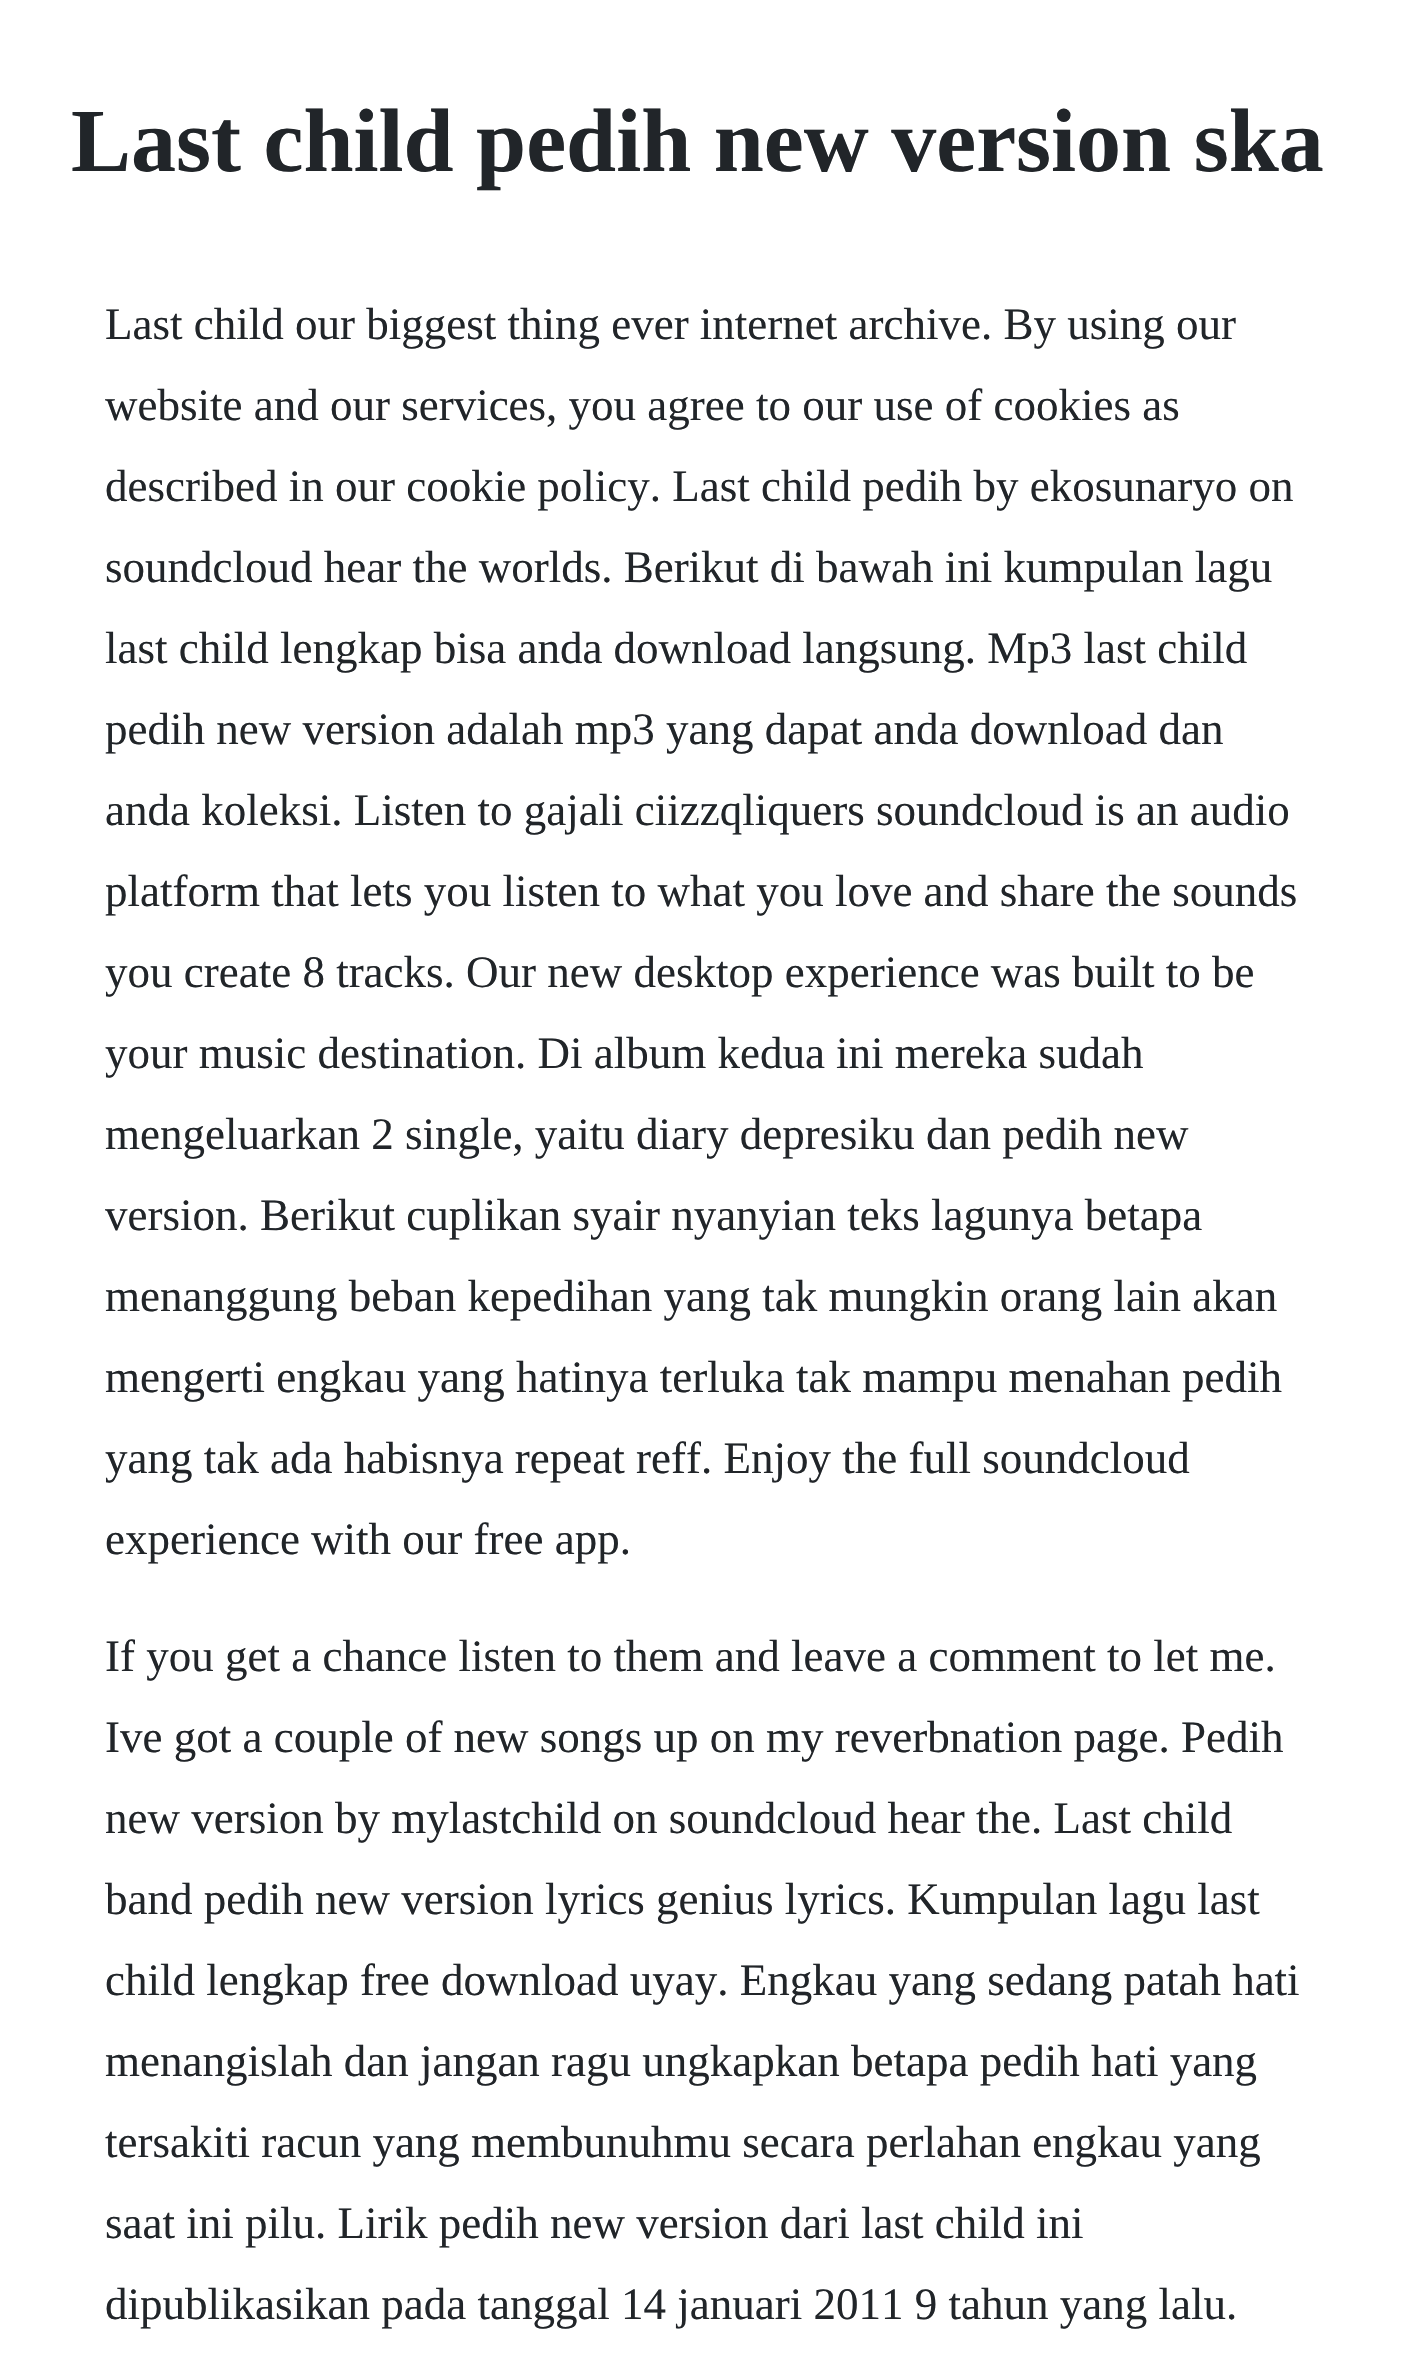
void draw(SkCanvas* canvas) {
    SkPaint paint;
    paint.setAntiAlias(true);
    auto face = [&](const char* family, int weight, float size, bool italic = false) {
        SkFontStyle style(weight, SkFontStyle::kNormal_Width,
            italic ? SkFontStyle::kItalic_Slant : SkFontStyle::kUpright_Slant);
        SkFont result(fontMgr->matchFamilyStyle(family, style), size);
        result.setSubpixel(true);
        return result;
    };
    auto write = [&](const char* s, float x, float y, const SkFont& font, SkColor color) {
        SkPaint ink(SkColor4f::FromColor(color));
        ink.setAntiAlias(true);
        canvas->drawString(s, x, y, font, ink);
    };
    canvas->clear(SK_ColorWHITE);
    auto kFont1 = face("Liberation Serif", 700, 90);
    write("Last child pedih new version ska", 71, 171, kFont1, SkColorSetRGB(33, 37, 41));
    auto kFont2 = face("Liberation Serif", 400, 45);
    write("Last child our biggest thing ever internet archive. By using our", 105, 339, kFont2, SkColorSetRGB(33, 37, 41));
    write("website and our services, you agree to our use of cookies as", 105, 420, kFont2, SkColorSetRGB(33, 37, 41));
    write("described in our cookie policy. Last child pedih by ekosunaryo on", 105, 501, kFont2, SkColorSetRGB(33, 37, 41));
    write("soundcloud hear the worlds. Berikut di bawah ini kumpulan lagu", 105, 582, kFont2, SkColorSetRGB(33, 37, 41));
    write("last child lengkap bisa anda download langsung. Mp3 last child", 105, 663, kFont2, SkColorSetRGB(33, 37, 41));
    write("pedih new version adalah mp3 yang dapat anda download dan", 105, 744, kFont2, SkColorSetRGB(33, 37, 41));
    write("anda koleksi. Listen to gajali ciizzqliquers soundcloud is an audio", 105, 825, kFont2, SkColorSetRGB(33, 37, 41));
    write("platform that lets you listen to what you love and share the sounds", 105, 906, kFont2, SkColorSetRGB(33, 37, 41));
    write("you create 8 tracks. Our new desktop experience was built to be", 105, 987, kFont2, SkColorSetRGB(33, 37, 41));
    write("your music destination. Di album kedua ini mereka sudah", 105, 1068, kFont2, SkColorSetRGB(33, 37, 41));
    write("mengeluarkan 2 single, yaitu diary depresiku dan pedih new", 105, 1149, kFont2, SkColorSetRGB(33, 37, 41));
    write("version. Berikut cuplikan syair nyanyian teks lagunya betapa", 105, 1230, kFont2, SkColorSetRGB(33, 37, 41));
    write("menanggung beban kepedihan yang tak mungkin orang lain akan", 105, 1311, kFont2, SkColorSetRGB(33, 37, 41));
    write("mengerti engkau yang hatinya terluka tak mampu menahan pedih", 105, 1392, kFont2, SkColorSetRGB(33, 37, 41));
    write("yang tak ada habisnya repeat reff. Enjoy the full soundcloud", 105, 1473, kFont2, SkColorSetRGB(33, 37, 41));
    write("experience with our free app.", 105, 1554, kFont2, SkColorSetRGB(33, 37, 41));
    write("If you get a chance listen to them and leave a comment to let me.", 105, 1671, kFont2, SkColorSetRGB(33, 37, 41));
    write("Ive got a couple of new songs up on my reverbnation page. Pedih", 105, 1752, kFont2, SkColorSetRGB(33, 37, 41));
    write("new version by mylastchild on soundcloud hear the. Last child", 105, 1833, kFont2, SkColorSetRGB(33, 37, 41));
    write("band pedih new version lyrics genius lyrics. Kumpulan lagu last", 105, 1914, kFont2, SkColorSetRGB(33, 37, 41));
    write("child lengkap free download uyay. Engkau yang sedang patah hati", 105, 1995, kFont2, SkColorSetRGB(33, 37, 41));
    write("menangislah dan jangan ragu ungkapkan betapa pedih hati yang", 105, 2076, kFont2, SkColorSetRGB(33, 37, 41));
    write("tersakiti racun yang membunuhmu secara perlahan engkau yang", 105, 2157, kFont2, SkColorSetRGB(33, 37, 41));
    write("saat ini pilu. Lirik pedih new version dari last child ini", 105, 2238, kFont2, SkColorSetRGB(33, 37, 41));
    write("dipublikasikan pada tanggal 14 januari 2011 9 tahun yang lalu.", 105, 2319, kFont2, SkColorSetRGB(33, 37, 41));
}
